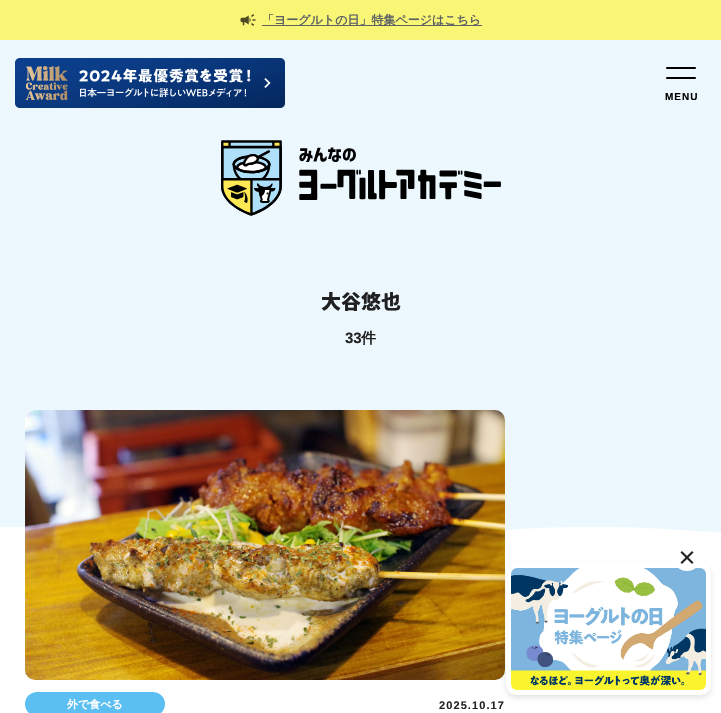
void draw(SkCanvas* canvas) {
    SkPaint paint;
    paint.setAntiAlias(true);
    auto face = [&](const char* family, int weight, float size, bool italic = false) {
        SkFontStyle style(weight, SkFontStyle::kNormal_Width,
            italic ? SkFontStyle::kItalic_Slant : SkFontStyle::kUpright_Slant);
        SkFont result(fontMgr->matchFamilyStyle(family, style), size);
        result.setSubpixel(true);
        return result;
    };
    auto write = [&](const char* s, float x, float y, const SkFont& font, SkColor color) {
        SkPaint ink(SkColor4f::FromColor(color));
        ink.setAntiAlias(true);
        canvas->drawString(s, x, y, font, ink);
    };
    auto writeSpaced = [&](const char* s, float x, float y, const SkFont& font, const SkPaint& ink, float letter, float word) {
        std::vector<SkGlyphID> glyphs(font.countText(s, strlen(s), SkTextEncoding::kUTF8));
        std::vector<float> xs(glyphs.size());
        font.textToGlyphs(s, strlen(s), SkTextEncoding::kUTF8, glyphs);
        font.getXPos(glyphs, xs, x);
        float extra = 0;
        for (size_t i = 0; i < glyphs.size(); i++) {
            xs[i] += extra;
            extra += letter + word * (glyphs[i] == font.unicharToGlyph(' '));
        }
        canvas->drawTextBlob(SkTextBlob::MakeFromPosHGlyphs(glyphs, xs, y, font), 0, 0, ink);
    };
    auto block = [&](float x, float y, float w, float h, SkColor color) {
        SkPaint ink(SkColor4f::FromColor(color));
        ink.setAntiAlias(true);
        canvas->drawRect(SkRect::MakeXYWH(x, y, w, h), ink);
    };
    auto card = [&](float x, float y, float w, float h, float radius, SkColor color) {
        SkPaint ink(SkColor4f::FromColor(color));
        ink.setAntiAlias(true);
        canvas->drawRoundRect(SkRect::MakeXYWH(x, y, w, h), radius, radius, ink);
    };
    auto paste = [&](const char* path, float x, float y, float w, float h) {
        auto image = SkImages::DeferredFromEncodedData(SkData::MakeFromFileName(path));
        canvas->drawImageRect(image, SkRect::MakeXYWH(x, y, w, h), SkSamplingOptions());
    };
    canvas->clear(SK_ColorWHITE);
    paint.setColor(SkColorSetRGB(236, 248, 254));
    canvas->drawPath(SkPathBuilder().moveTo(0, -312).lineTo(0, 527).cubicTo(56, 527, 63, 532, 131, 532).cubicTo(208, 532, 208, 527, 284, 527).cubicTo(360, 527, 360, 532, 437, 532).cubicTo(513, 532, 513, 527, 590, 527).cubicTo(658, 527, 665, 530, 721, 532).lineTo(721, -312).close().detach(), paint);
    block(0, 0, 721, 40, SkColorSetRGB(249, 246, 118));
    paste("pic1.png", 240, 14, 16, 12);
    block(262, 25, 220, 1, SkColorSetRGB(94, 98, 99));
    auto kFont1 = face("WenQuanYi Zen Hei", 700, 12);
    write("「ヨーグルトの日」特集ページはこちら", 262, 24, kFont1, SkColorSetRGB(94, 98, 99));
    paste("pic2.png", 15, 58, 270, 50);
    card(666, 67, 30, 2, 1, SK_ColorBLACK);
    card(666, 77, 30, 2, 1, SK_ColorBLACK);
    auto kFont2 = face("Liberation Sans", 700, 10);
    paint.setColor(SK_ColorBLACK);
    writeSpaced("MENU", 665, 100, kFont2, paint, 1, 0);
    paste("pic3.png", 221, 140, 280, 76);
    paste("pic5.png", 25, 410, 480, 270);
    paint.setColor(SkColorSetARGB(26, 0, 0, 0));
    paint.setMaskFilter(SkMaskFilter::MakeBlur(kNormal_SkBlurStyle, 2.5f));
    canvas->drawRoundRect(SkRect::MakeXYWH(506, 566, 205, 132), 10, 10, paint);
    paint.setMaskFilter(nullptr);
    card(506, 563, 205, 132, 10, SK_ColorWHITE);
    paste("pic4.png", 511, 568, 195, 122);
    paint.setColor(SK_ColorWHITE);
    canvas->drawCircle(687, 557, 14, paint);
    paint.setColor(SkColorSetRGB(33, 33, 33));
    canvas->drawPath(SkPathBuilder().moveTo(682, 551).lineTo(693.5f, 562.5f).lineTo(692, 564).lineTo(680.5f, 552.5f).close().detach(), paint);
    canvas->drawPath(SkPathBuilder().moveTo(680.5f, 562.5f).lineTo(692, 551).lineTo(693.5f, 552.5f).lineTo(682, 564).close().detach(), paint);
    auto kFont3 = face("Noto Sans JP", 100, 20);
    write("大谷悠也", 321, 309, kFont3, SkColorSetRGB(33, 33, 33));
    auto kFont4 = face("Liberation Sans", 700, 15);
    write("33", 345, 343, kFont4, SkColorSetRGB(33, 33, 33));
    auto kFont5 = face("WenQuanYi Zen Hei", 700, 15);
    write("件", 361, 343, kFont5, SkColorSetRGB(33, 33, 33));
    card(25, 692, 140, 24, 12, SkColorSetRGB(91, 191, 242));
    auto kFont6 = face("WenQuanYi Zen Hei", 700, 11);
    write("外で食べる", 67, 708, kFont6, SK_ColorWHITE);
    auto kFont7 = face("Liberation Sans", 700, 11);
    writeSpaced("2025.10.17", 439, 709, kFont7, paint, 1.1f, 0);
}
